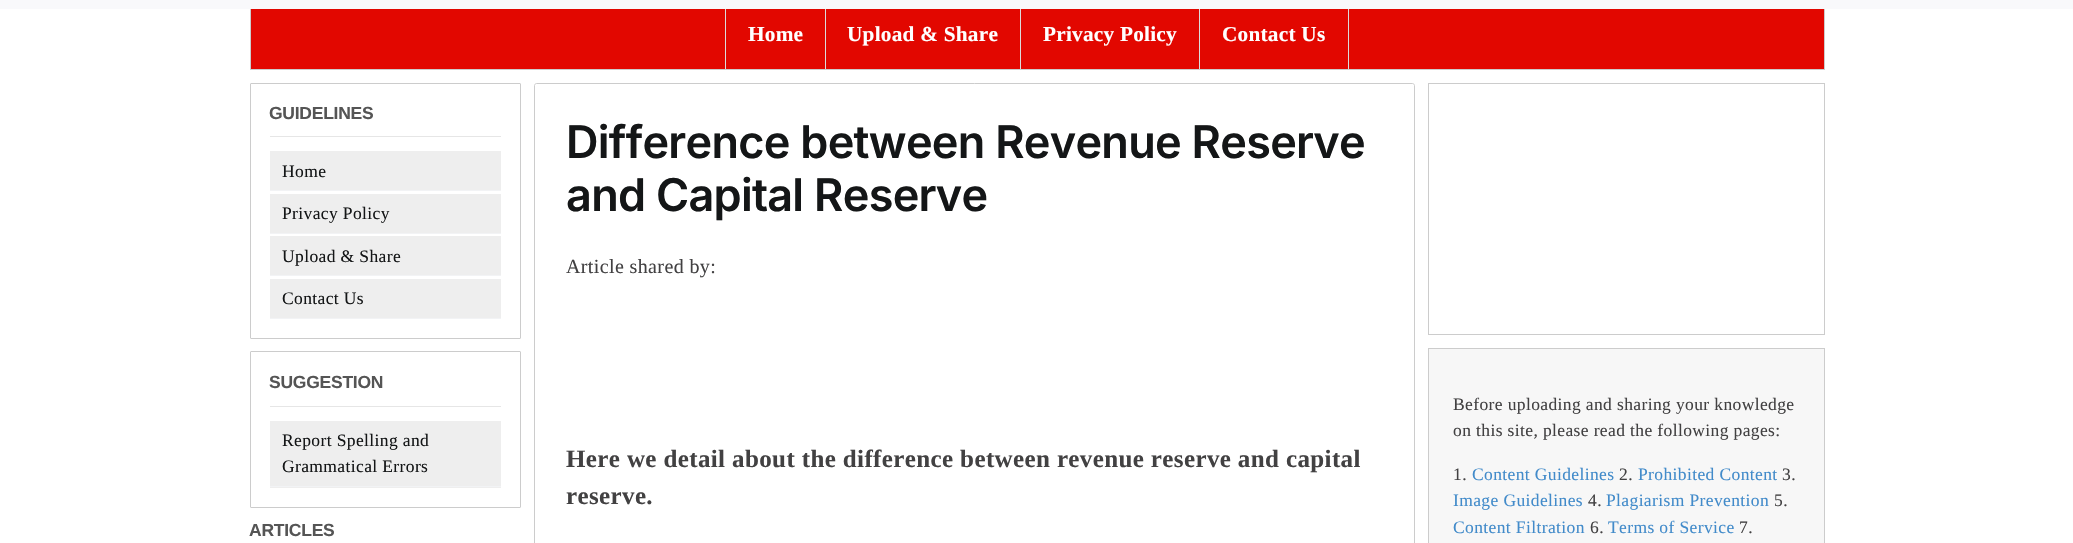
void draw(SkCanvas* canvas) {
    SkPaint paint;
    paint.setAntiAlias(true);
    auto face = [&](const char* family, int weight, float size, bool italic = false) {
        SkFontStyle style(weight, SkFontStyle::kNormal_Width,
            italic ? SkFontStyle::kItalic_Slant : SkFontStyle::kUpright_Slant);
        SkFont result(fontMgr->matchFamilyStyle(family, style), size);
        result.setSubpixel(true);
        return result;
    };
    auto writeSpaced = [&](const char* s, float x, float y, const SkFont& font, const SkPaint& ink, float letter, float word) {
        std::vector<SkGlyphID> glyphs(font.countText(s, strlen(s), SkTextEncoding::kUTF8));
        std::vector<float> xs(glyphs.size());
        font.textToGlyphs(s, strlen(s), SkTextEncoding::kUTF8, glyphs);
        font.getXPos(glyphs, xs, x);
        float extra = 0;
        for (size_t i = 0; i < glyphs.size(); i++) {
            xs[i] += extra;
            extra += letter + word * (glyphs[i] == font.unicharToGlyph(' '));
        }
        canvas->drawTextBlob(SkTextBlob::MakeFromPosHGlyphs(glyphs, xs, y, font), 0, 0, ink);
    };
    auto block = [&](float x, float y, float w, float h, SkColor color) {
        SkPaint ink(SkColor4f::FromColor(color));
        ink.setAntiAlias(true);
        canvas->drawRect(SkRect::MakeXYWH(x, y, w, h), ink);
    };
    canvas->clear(SK_ColorWHITE);
    block(251, 9, 1573, 60, SkColorSetRGB(226, 7, 0));
    paint.setStyle(SkPaint::kStroke_Style);
    paint.setStrokeWidth(1);
    paint.setColor(SkColorSetRGB(204, 204, 204));
    canvas->drawRect(SkRect::MakeXYWH(250.5f, 0.5f, 1574, 69), paint);
    block(825, 1, 1, 68, SkColorSetRGB(219, 219, 219));
    block(725, 1, 1, 68, SkColorSetRGB(219, 219, 219));
    block(1020, 1, 1, 68, SkColorSetRGB(219, 219, 219));
    block(1199, 1, 1, 68, SkColorSetRGB(219, 219, 219));
    block(1348, 1, 1, 68, SkColorSetRGB(219, 219, 219));
    block(0, 0, 2073, 9, SkColorSetRGB(249, 249, 251));
    auto kFont1 = face("Liberation Serif", 700, 21.25f);
    paint.setStyle(SkPaint::kFill_Style);
    paint.setColor(SK_ColorWHITE);
    writeSpaced("Home", 748, 41, kFont1, paint, 0.25f, 0);
    writeSpaced("Upload & Share", 847, 41, kFont1, paint, 0.25f, 0);
    writeSpaced("Privacy Policy", 1043, 41, kFont1, paint, 0.25f, 0);
    writeSpaced("Contact Us", 1222, 41, kFont1, paint, 0.25f, 0);
    paint.setStyle(SkPaint::kStroke_Style);
    paint.setColor(SkColorSetRGB(204, 204, 204));
    canvas->drawRoundRect(SkRect::MakeXYWH(250.5f, 83.5f, 270, 255), 0.5f, 0.5f, paint);
    block(270, 136, 231, 1, SkColorSetRGB(230, 230, 230));
    auto kFont2 = face("Liberation Sans", 700, 17.5f);
    paint.setStyle(SkPaint::kFill_Style);
    paint.setColor(SkColorSetRGB(85, 85, 85));
    writeSpaced("GUIDELINES", 269, 119, kFont2, paint, -0.25f, 0);
    block(270, 151, 231, 39, SkColorSetRGB(238, 238, 238));
    block(270, 190, 231, 1, SkColorSetRGB(242, 243, 245));
    auto kFont3 = face("Liberation Serif", 400, 17.5f);
    paint.setColor(SkColorSetRGB(20, 22, 23));
    writeSpaced("Home", 282, 177, kFont3, paint, 0.38f, 0);
    block(270, 194, 231, 39, SkColorSetRGB(238, 238, 238));
    block(270, 233, 231, 1, SkColorSetRGB(242, 243, 245));
    writeSpaced("Privacy Policy", 282, 219, kFont3, paint, 0.38f, 0);
    block(270, 236, 231, 39, SkColorSetRGB(238, 238, 238));
    block(270, 275, 231, 1, SkColorSetRGB(242, 243, 245));
    writeSpaced("Upload & Share", 282, 262, kFont3, paint, 0.38f, 0);
    block(270, 279, 231, 39, SkColorSetRGB(238, 238, 238));
    block(270, 318, 231, 1, SkColorSetRGB(242, 243, 245));
    writeSpaced("Contact Us", 282, 304, kFont3, paint, 0.38f, 0);
    paint.setStyle(SkPaint::kStroke_Style);
    paint.setColor(SkColorSetRGB(204, 204, 204));
    canvas->drawRoundRect(SkRect::MakeXYWH(250.5f, 351.5f, 270, 156), 0.5f, 0.5f, paint);
    block(270, 406, 231, 1, SkColorSetRGB(230, 230, 230));
    paint.setStyle(SkPaint::kFill_Style);
    paint.setColor(SkColorSetRGB(85, 85, 85));
    writeSpaced("SUGGESTION", 269, 388, kFont2, paint, -0.25f, 0);
    block(270, 421, 231, 67, SkColorSetRGB(238, 238, 238));
    block(270, 486, 231, 1, SkColorSetRGB(242, 243, 245));
    paint.setColor(SkColorSetRGB(20, 22, 23));
    writeSpaced("Report Spelling and", 282, 446, kFont3, paint, 0.38f, 0);
    writeSpaced("Grammatical Errors", 282, 472, kFont3, paint, 0.38f, 0);
    paint.setColor(SkColorSetRGB(85, 85, 85));
    writeSpaced("ARTICLES", 249, 536, kFont2, paint, -0.25f, 0);
    paint.setStyle(SkPaint::kStroke_Style);
    paint.setColor(SkColorSetRGB(204, 204, 204));
    canvas->drawPath(SkPathBuilder().moveTo(536.5f, 83.5f).lineTo(1412.5f, 83.5f).cubicTo(1413.5f, 83.5f, 1414.5f, 84.5f, 1414.5f, 85.5f).lineTo(1414.5f, 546.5f).lineTo(534.5f, 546.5f).lineTo(534.5f, 85.5f).cubicTo(534.5f, 84.5f, 535.5f, 83.5f, 536.5f, 83.5f).close().detach(), paint);
    auto kFont4 = face("Inter", 600, 45);
    paint.setStyle(SkPaint::kFill_Style);
    paint.setColor(SkColorSetRGB(20, 22, 23));
    writeSpaced("Difference between Revenue Reserve", 566, 158, kFont4, paint, -0.7f, 0);
    writeSpaced("and Capital Reserve", 566, 211, kFont4, paint, -0.7f, 0);
    auto kFont5 = face("Liberation Serif", 400, 20);
    paint.setColor(SkColorSetRGB(66, 65, 66));
    writeSpaced("Article shared by:", 566, 273, kFont5, paint, 0.38f, 0);
    auto kFont6 = face("Liberation Serif", 700, 25);
    writeSpaced("Here we detail about the difference between revenue reserve and capital", 566, 467, kFont6, paint, 0.38f, 0);
    writeSpaced("reserve.", 566, 504, kFont6, paint, 0.38f, 0);
    paint.setStyle(SkPaint::kStroke_Style);
    paint.setColor(SkColorSetRGB(204, 204, 204));
    canvas->drawRect(SkRect::MakeXYWH(1428.5f, 83.5f, 396, 251), paint);
    paint.setStyle(SkPaint::kFill_Style);
    paint.setColor(SkColorSetRGB(247, 247, 247));
    canvas->drawRect(SkRect::MakeXYWH(1428.5f, 348.5f, 396, 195), paint);
    paint.setStyle(SkPaint::kStroke_Style);
    paint.setColor(SkColorSetRGB(204, 204, 204));
    canvas->drawRect(SkRect::MakeXYWH(1428.5f, 348.5f, 396, 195), paint);
    paint.setStyle(SkPaint::kFill_Style);
    paint.setColor(SkColorSetRGB(66, 65, 66));
    writeSpaced("Before uploading and sharing your knowledge", 1453, 410, kFont3, paint, 0.38f, 0);
    writeSpaced("on this site, please read the following pages:", 1453, 436, kFont3, paint, 0.38f, 0);
    writeSpaced("1.", 1453, 480, kFont3, paint, 0.38f, 0);
    paint.setColor(SkColorSetRGB(66, 139, 202));
    writeSpaced("Content Guidelines", 1472, 480, kFont3, paint, 0.38f, 0);
    paint.setColor(SkColorSetRGB(66, 65, 66));
    writeSpaced("2.", 1619, 480, kFont3, paint, 0.38f, 0);
    paint.setColor(SkColorSetRGB(66, 139, 202));
    writeSpaced("Prohibited Content", 1638, 480, kFont3, paint, 0.38f, 0);
    paint.setColor(SkColorSetRGB(66, 65, 66));
    writeSpaced("3.", 1782, 480, kFont3, paint, 0.38f, 0);
    paint.setColor(SkColorSetRGB(66, 139, 202));
    writeSpaced("Image Guidelines", 1453, 506, kFont3, paint, 0.38f, 0);
    paint.setColor(SkColorSetRGB(66, 65, 66));
    writeSpaced("4.", 1588, 506, kFont3, paint, 0.38f, 0);
    paint.setColor(SkColorSetRGB(66, 139, 202));
    writeSpaced("Plagiarism Prevention", 1606, 506, kFont3, paint, 0.38f, 0);
    paint.setColor(SkColorSetRGB(66, 65, 66));
    writeSpaced("5.", 1774, 506, kFont3, paint, 0.38f, 0);
    paint.setColor(SkColorSetRGB(66, 139, 202));
    writeSpaced("Content Filtration", 1453, 533, kFont3, paint, 0.38f, 0);
    paint.setColor(SkColorSetRGB(66, 65, 66));
    writeSpaced("6.", 1590, 533, kFont3, paint, 0.38f, 0);
    paint.setColor(SkColorSetRGB(66, 139, 202));
    writeSpaced("Terms of Service", 1608, 533, kFont3, paint, 0.38f, 0);
    paint.setColor(SkColorSetRGB(66, 65, 66));
    writeSpaced("7.", 1739, 533, kFont3, paint, 0.38f, 0);
}
